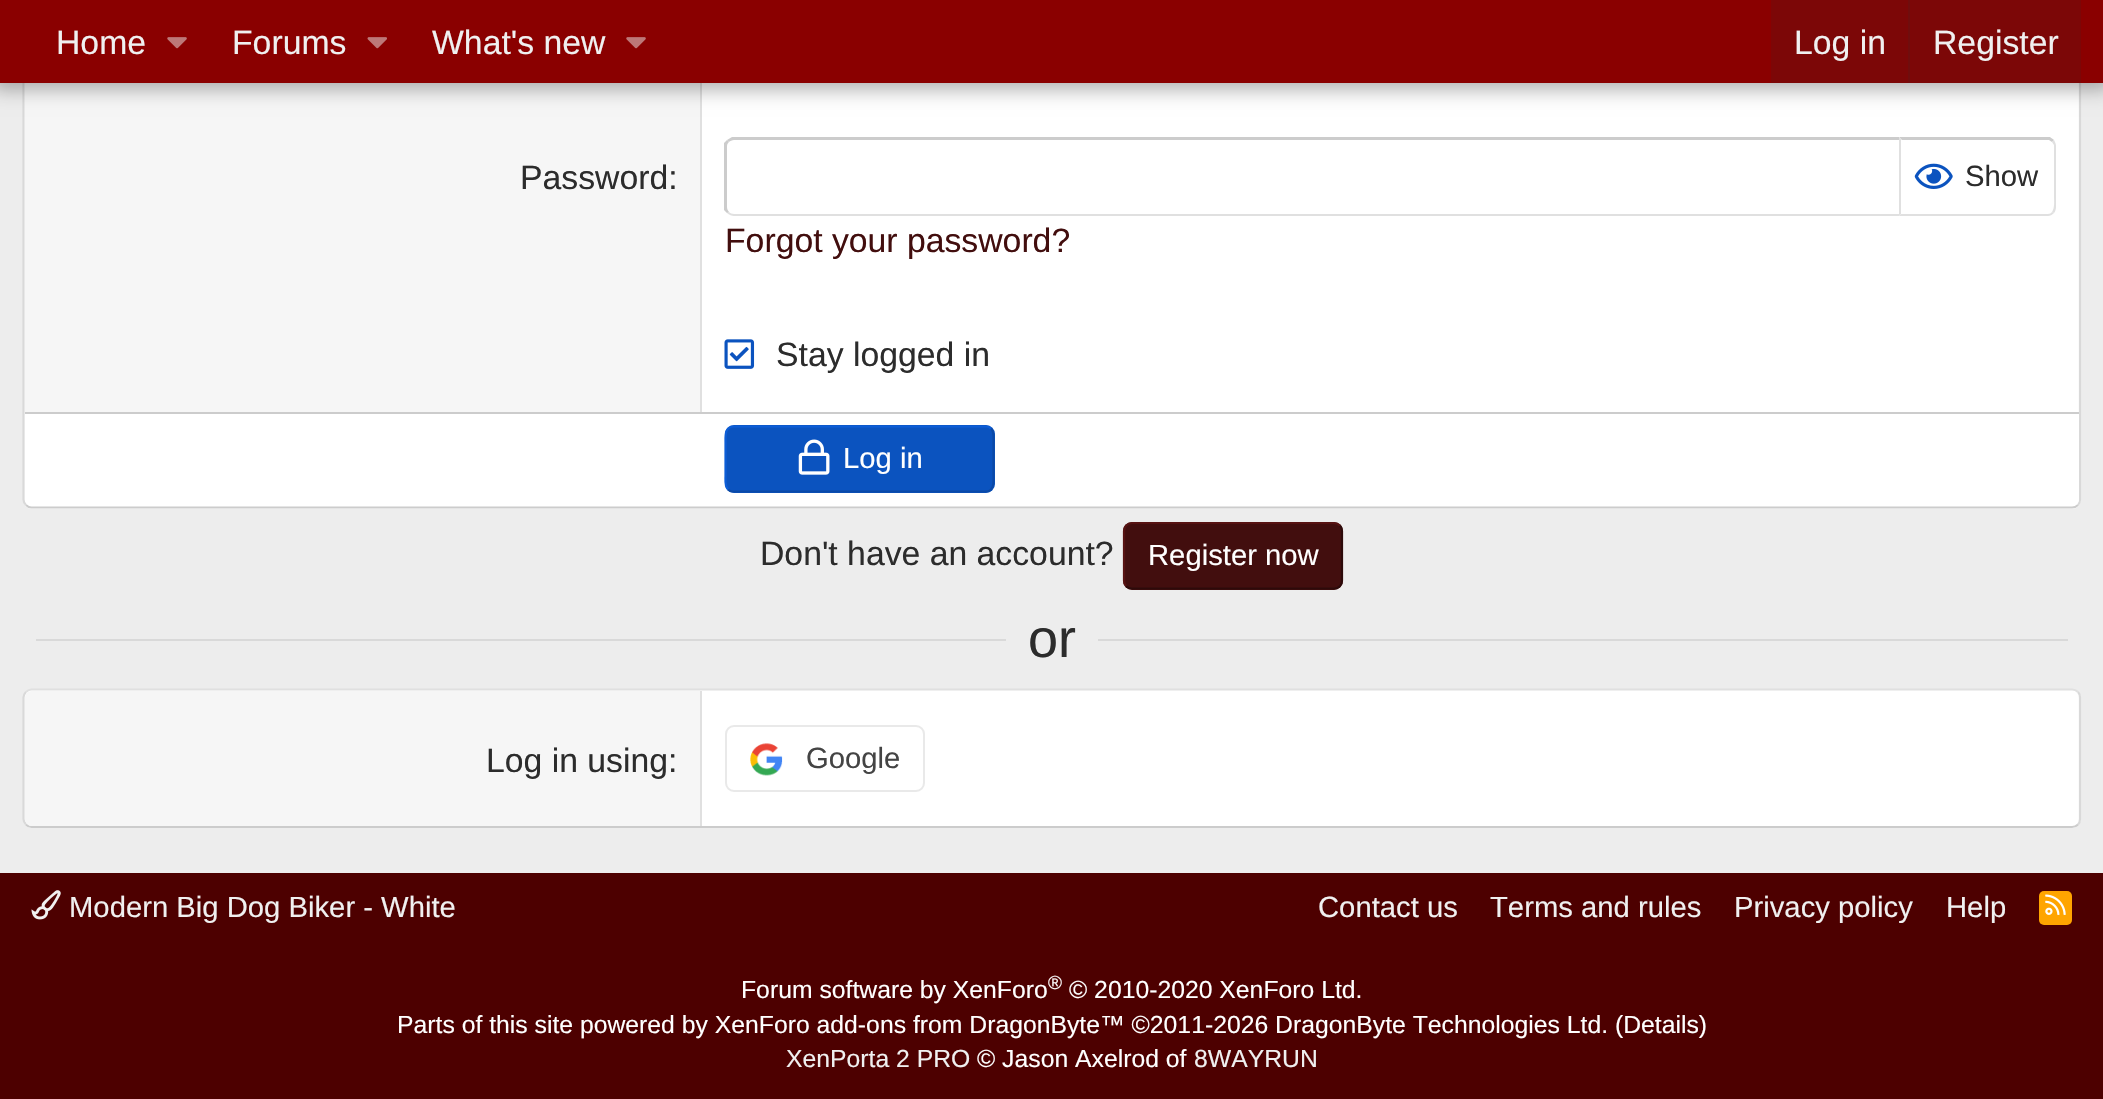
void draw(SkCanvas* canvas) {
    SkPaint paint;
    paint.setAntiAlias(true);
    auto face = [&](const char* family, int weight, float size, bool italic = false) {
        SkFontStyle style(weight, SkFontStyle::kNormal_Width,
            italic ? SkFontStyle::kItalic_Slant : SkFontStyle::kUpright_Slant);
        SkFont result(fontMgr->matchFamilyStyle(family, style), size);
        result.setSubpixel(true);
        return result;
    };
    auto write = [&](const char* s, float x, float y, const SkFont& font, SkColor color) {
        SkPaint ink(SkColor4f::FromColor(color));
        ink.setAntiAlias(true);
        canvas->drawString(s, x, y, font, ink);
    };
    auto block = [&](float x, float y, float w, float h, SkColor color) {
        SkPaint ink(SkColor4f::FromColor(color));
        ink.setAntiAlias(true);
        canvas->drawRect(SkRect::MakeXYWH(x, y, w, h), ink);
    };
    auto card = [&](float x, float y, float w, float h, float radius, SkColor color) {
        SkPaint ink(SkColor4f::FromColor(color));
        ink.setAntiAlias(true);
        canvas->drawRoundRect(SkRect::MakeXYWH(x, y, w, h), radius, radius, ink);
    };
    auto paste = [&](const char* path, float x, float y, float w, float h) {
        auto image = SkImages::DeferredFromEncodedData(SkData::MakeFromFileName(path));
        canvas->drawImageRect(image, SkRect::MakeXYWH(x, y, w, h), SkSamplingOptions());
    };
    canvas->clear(SkColorSetRGB(237, 237, 237));
    card(23, -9, 2058, 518, 9, SK_ColorWHITE);
    paint.setStyle(SkPaint::kStroke_Style);
    paint.setStrokeWidth(2.2f);
    paint.setColor(SkColorSetRGB(217, 217, 217));
    canvas->drawPath(SkPathBuilder().moveTo(2078, -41.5f).cubicTo(2079.5f, -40, 2080, -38, 2080, -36).lineTo(2080, 499.5f).cubicTo(2080, 501.5f, 2079.5f, 503.5f, 2078, 505).detach(), paint);
    paint.setColor(SkColorSetRGB(204, 204, 204));
    canvas->drawPath(SkPathBuilder().moveTo(2078, 505).cubicTo(2076.5f, 506.5f, 2074.5f, 507.5f, 2072, 507.5f).lineTo(31.5f, 507.5f).cubicTo(29.5f, 507.5f, 27.5f, 506.5f, 26, 505).detach(), paint);
    paint.setColor(SkColorSetRGB(217, 217, 217));
    canvas->drawPath(SkPathBuilder().moveTo(26, 505).cubicTo(24.5f, 503.5f, 23.5f, 501.5f, 23.5f, 499.5f).lineTo(23.5f, -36).cubicTo(23.5f, -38, 24.5f, -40, 26, -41.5f).detach(), paint);
    block(25, 83, 675, 329, SkColorSetRGB(246, 246, 246));
    block(700, 83, 2, 329, SkColorSetRGB(224, 224, 224));
    paint.setStyle(SkPaint::kFill_Style);
    paint.setColor(SkColorSetARGB(77, 0, 0, 0));
    paint.setMaskFilter(SkMaskFilter::MakeBlur(kNormal_SkBlurStyle, 9));
    canvas->drawRect(SkRect::MakeXYWH(-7, -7, 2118, 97), paint);
    paint.setMaskFilter(nullptr);
    block(0, 0, 2103, 83, SkColorSetRGB(138, 0, 0));
    auto kFont1 = face("Liberation Sans", 400, 33.75f);
    write("Home", 56, 54, kFont1, SkColorSetRGB(240, 240, 240));
    paste("pic1.png", 167, 37, 20, 12);
    write("Forums", 232, 54, kFont1, SkColorSetRGB(240, 240, 240));
    paste("pic2.png", 367, 37, 20, 12);
    write("What's new", 432, 54, kFont1, SkColorSetRGB(240, 240, 240));
    paste("pic1.png", 626, 37, 20, 12);
    block(1771, 0, 310, 83, SkColorSetRGB(124, 7, 7));
    write("Log in", 1794, 54, kFont1, SkColorSetRGB(240, 240, 240));
    block(1908, 0, 2, 83, SkColorSetRGB(112, 13, 13));
    write("Register", 1933, 54, kFont1, SkColorSetRGB(240, 240, 240));
    write("Password:", 520, 189, kFont1, SkColorSetRGB(44, 44, 44));
    paint.setColor(SkColorSetRGB(204, 204, 204));
    canvas->drawPath(SkPathBuilder().moveTo(734, 140).cubicTo(732, 140, 730, 141, 729, 142).lineTo(727, 140).lineTo(732, 137).lineTo(1899, 137).lineTo(1899, 140).close().detach(), paint);
    paint.setColor(SkColorSetRGB(224, 224, 224));
    canvas->drawPath(SkPathBuilder().moveTo(1899, 216).lineTo(1899, 214).lineTo(734, 214).cubicTo(732, 214, 730, 213, 729, 212).lineTo(727, 213).cubicTo(729, 215, 732, 216, 734, 216).close().detach(), paint);
    paint.setColor(SkColorSetRGB(204, 204, 204));
    canvas->drawPath(SkPathBuilder().moveTo(724, 143).lineTo(727, 140).lineTo(729, 142).cubicTo(728, 143, 727, 144, 727, 146).lineTo(727, 207).cubicTo(727, 209, 728, 211, 729, 212).lineTo(727, 213).lineTo(724, 210).close().detach(), paint);
    canvas->drawPath(SkPathBuilder().moveTo(1899, 137).lineTo(2050, 137).cubicTo(2051, 138, 2053, 139, 2054, 140).lineTo(2052, 142).lineTo(2049, 140).lineTo(1902, 140).close().detach(), paint);
    paint.setColor(SkColorSetRGB(224, 224, 224));
    canvas->drawPath(SkPathBuilder().moveTo(2054, 140).cubicTo(2055, 142, 2056, 144, 2056, 146).lineTo(2056, 207).cubicTo(2056, 209, 2055, 212, 2054, 213).lineTo(2052, 212).cubicTo(2055, 208, 2054, 200, 2054, 197).lineTo(2054, 145).lineTo(2052, 142).close().detach(), paint);
    canvas->drawPath(SkPathBuilder().moveTo(2048, 216).cubicTo(2050, 216, 2052, 215, 2054, 213).lineTo(2052, 212).cubicTo(2051, 213, 2050, 214, 2048, 214).lineTo(1901, 214).lineTo(1899, 216).close().detach(), paint);
    canvas->drawPath(SkPathBuilder().moveTo(1901, 140).lineTo(1902, 140).lineTo(1899, 137).lineTo(1899, 216).lineTo(1901, 214).close().detach(), paint);
    paste("pic3.png", 1914, 163, 39, 26);
    auto kFont2 = face("Liberation Sans", 400, 29.25f);
    write("Show", 1965, 186, kFont2, SkColorSetRGB(44, 44, 44));
    write("Forgot your password?", 725, 252, kFont1, SkColorSetRGB(66, 14, 14));
    paste("pic4.png", 724, 339, 31, 30);
    write("Stay logged in", 776, 366, kFont1, SkColorSetRGB(44, 44, 44));
    paint.setColor(SK_ColorWHITE);
    canvas->drawPath(SkPathBuilder().moveTo(25, 412).lineTo(2079, 412).lineTo(2079, 499).cubicTo(2079, 503, 2076, 506, 2072, 506).lineTo(32, 506).cubicTo(28, 506, 25, 503, 25, 499).close().detach(), paint);
    block(25, 412, 2054, 2, SkColorSetRGB(204, 204, 204));
    card(725, 425, 270, 68, 9, SkColorSetRGB(11, 83, 191));
    paint.setStyle(SkPaint::kStroke_Style);
    paint.setColor(SkColorSetRGB(10, 73, 167));
    canvas->drawPath(SkPathBuilder().moveTo(991, 428.5f).cubicTo(994.5f, 432, 993.5f, 438, 993.5f, 442.5f).lineTo(993.5f, 475.5f).cubicTo(993.5f, 481.5f, 994.5f, 491.5f, 985.5f, 491.5f).lineTo(732.5f, 491.5f).cubicTo(731, 491.5f, 729, 490.5f, 728, 489.5f).detach(), paint);
    paint.setColor(SkColorSetRGB(12, 93, 215));
    canvas->drawPath(SkPathBuilder().moveTo(728, 489.5f).cubicTo(724.5f, 486, 725.5f, 480, 725.5f, 475.5f).lineTo(725.5f, 442.5f).cubicTo(725.5f, 436.5f, 724.5f, 426.5f, 733.5f, 426.5f).lineTo(986.5f, 426.5f).cubicTo(988, 426.5f, 990, 427.5f, 991, 428.5f).detach(), paint);
    paste("pic5.png", 798, 439, 32, 36);
    write("Log in", 843, 468, kFont2, SK_ColorWHITE);
    write("Don't have an account?", 760, 565, kFont1, SkColorSetRGB(44, 44, 44));
    card(1123, 522, 220, 68, 9, SkColorSetRGB(66, 14, 14));
    paint.setColor(SkColorSetRGB(45, 10, 10));
    canvas->drawPath(SkPathBuilder().moveTo(1340, 525.5f).cubicTo(1341.5f, 527, 1342, 529, 1342, 531).lineTo(1342, 580.5f).cubicTo(1342, 582.5f, 1341.5f, 584.5f, 1340, 586).cubicTo(1338.5f, 587.5f, 1336.5f, 588.5f, 1334, 588.5f).lineTo(1132, 588.5f).cubicTo(1129.5f, 588.5f, 1127.5f, 587.5f, 1126, 586).detach(), paint);
    paint.setColor(SkColorSetRGB(87, 18, 18));
    canvas->drawPath(SkPathBuilder().moveTo(1126, 586).cubicTo(1124.5f, 584.5f, 1124, 582.5f, 1124, 580.5f).lineTo(1124, 531).cubicTo(1124, 529, 1124.5f, 527, 1126, 525.5f).cubicTo(1127.5f, 524, 1129.5f, 523, 1132, 523).lineTo(1334, 523).cubicTo(1336.5f, 523, 1338.5f, 524, 1340, 525.5f).detach(), paint);
    write("Register now", 1148, 565, kFont2, SK_ColorWHITE);
    block(36, 639, 970, 2, SkColorSetRGB(217, 217, 217));
    auto kFont3 = face("Liberation Sans", 400, 54);
    write("or", 1028, 657, kFont3, SkColorSetRGB(44, 44, 44));
    block(1098, 639, 970, 2, SkColorSetRGB(217, 217, 217));
    card(23, 689, 2058, 139, 9, SK_ColorWHITE);
    paint.setColor(SkColorSetRGB(224, 224, 224));
    canvas->drawPath(SkPathBuilder().moveTo(26, 692).cubicTo(27.5f, 690.5f, 29.5f, 689.5f, 31.5f, 689.5f).lineTo(2072, 689.5f).cubicTo(2074.5f, 689.5f, 2076.5f, 690.5f, 2078, 692).detach(), paint);
    paint.setColor(SkColorSetRGB(217, 217, 217));
    canvas->drawPath(SkPathBuilder().moveTo(2078, 692).cubicTo(2079.5f, 693.5f, 2080, 695.5f, 2080, 697.5f).lineTo(2080, 819).cubicTo(2080, 821, 2079.5f, 823, 2078, 824.5f).detach(), paint);
    paint.setColor(SkColorSetRGB(204, 204, 204));
    canvas->drawPath(SkPathBuilder().moveTo(2078, 824.5f).cubicTo(2076.5f, 826, 2074.5f, 827, 2072, 827).lineTo(31.5f, 827).cubicTo(29.5f, 827, 27.5f, 826, 26, 824.5f).detach(), paint);
    paint.setColor(SkColorSetRGB(217, 217, 217));
    canvas->drawPath(SkPathBuilder().moveTo(26, 824.5f).cubicTo(24.5f, 823, 23.5f, 821, 23.5f, 819).lineTo(23.5f, 697.5f).cubicTo(23.5f, 695.5f, 24.5f, 693.5f, 26, 692).detach(), paint);
    paint.setStyle(SkPaint::kFill_Style);
    paint.setColor(SkColorSetRGB(246, 246, 246));
    canvas->drawPath(SkPathBuilder().moveTo(32, 691).lineTo(702, 691).lineTo(702, 826).lineTo(32, 826).cubicTo(28, 826, 25, 823, 25, 819).lineTo(25, 698).cubicTo(25, 694, 28, 691, 32, 691).close().detach(), paint);
    block(700, 691, 2, 135, SkColorSetRGB(224, 224, 224));
    write("Log in using:", 486, 772, kFont1, SkColorSetRGB(44, 44, 44));
    paint.setStyle(SkPaint::kStroke_Style);
    paint.setStrokeWidth(2);
    paint.setColor(SkColorSetRGB(233, 233, 233));
    canvas->drawRoundRect(SkRect::MakeXYWH(726, 726, 198, 65), 8, 8, paint);
    paste("pic6.png", 750, 743, 33, 33);
    write("Google", 806, 768, kFont2, SkColorSetRGB(68, 68, 68));
    block(0, 873, 2103, 226, SkColorSetRGB(77, 0, 0));
    paste("pic7.png", 31, 890, 30, 30);
    write("Modern Big Dog Biker - White", 69, 917, kFont2, SkColorSetRGB(240, 240, 240));
    write("Contact us", 1318, 917, kFont2, SkColorSetRGB(240, 240, 240));
    write("Terms and rules", 1490, 917, kFont2, SkColorSetRGB(240, 240, 240));
    write("Privacy policy", 1734, 917, kFont2, SkColorSetRGB(240, 240, 240));
    write("Help", 1946, 917, kFont2, SkColorSetRGB(240, 240, 240));
    card(2039, 891, 33, 34, 5, SkColorSetRGB(255, 165, 0));
    paste("pic8.png", 2045, 894, 21, 21);
    auto kFont4 = face("Liberation Sans", 400, 24.75f);
    write("Forum software by XenForo", 741, 998, kFont4, SK_ColorWHITE);
    auto kFont5 = face("Liberation Sans", 400, 19);
    write("®", 1048, 989, kFont5, SK_ColorWHITE);
    write("© 2010-2020 XenForo Ltd.", 1069, 998, kFont4, SK_ColorWHITE);
    write("Parts of this site powered by XenForo add-ons from DragonByte™ ©2011-2026 DragonByte Technologies Ltd. (Details)", 397, 1033, kFont4, SK_ColorWHITE);
    write("XenPorta 2 PRO", 786, 1067, kFont4, SkColorSetRGB(240, 240, 240));
    write("© Jason Axelrod of", 977, 1067, kFont4, SK_ColorWHITE);
    write("8WAYRUN", 1194, 1067, kFont4, SkColorSetRGB(240, 240, 240));
}
